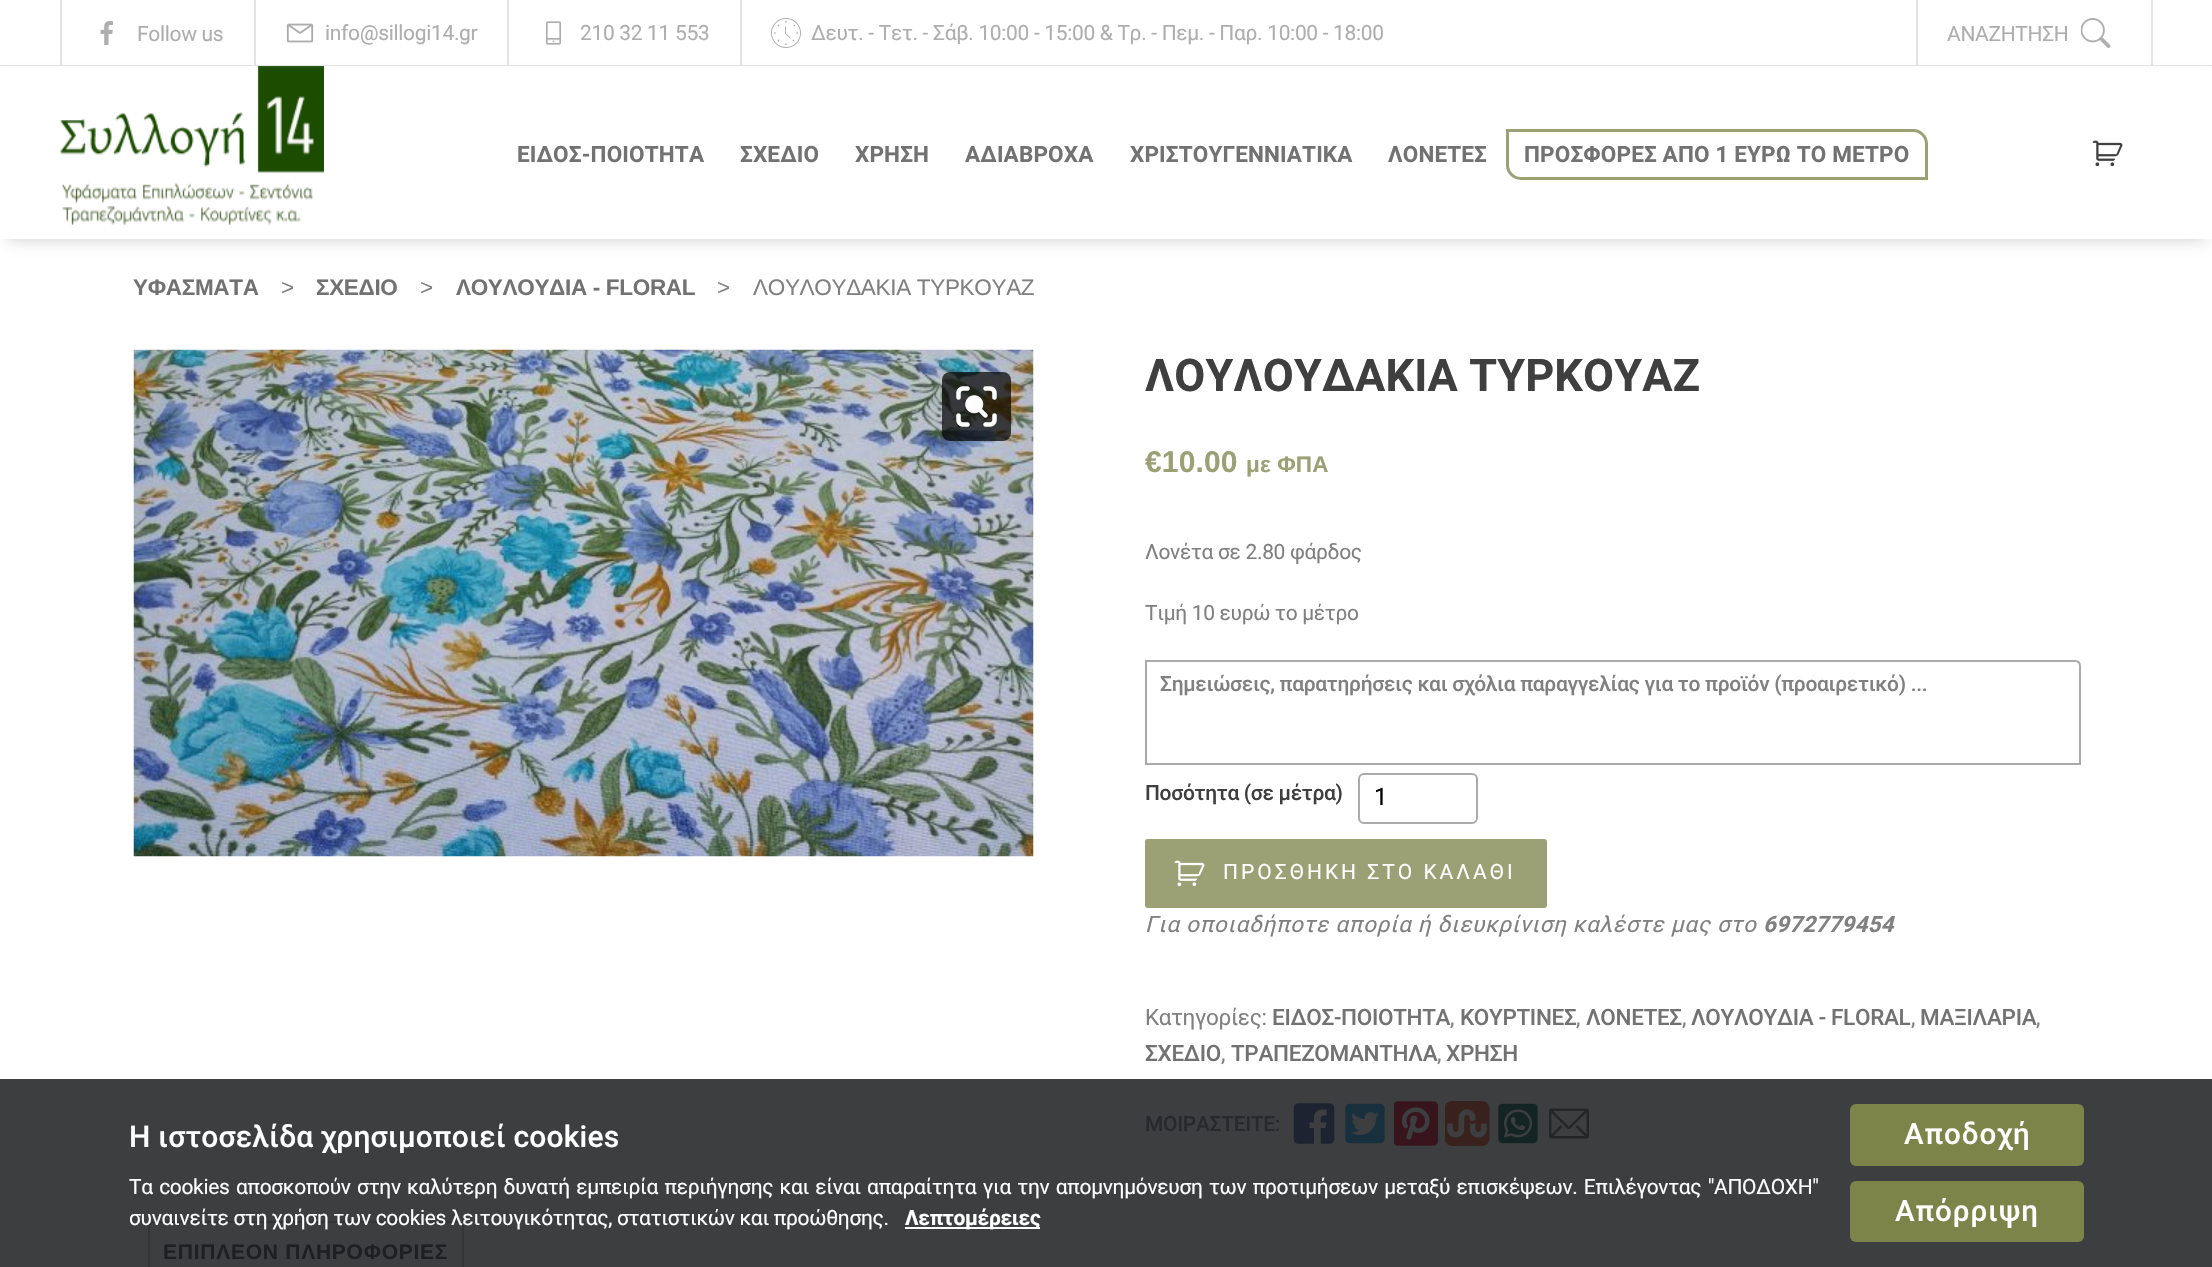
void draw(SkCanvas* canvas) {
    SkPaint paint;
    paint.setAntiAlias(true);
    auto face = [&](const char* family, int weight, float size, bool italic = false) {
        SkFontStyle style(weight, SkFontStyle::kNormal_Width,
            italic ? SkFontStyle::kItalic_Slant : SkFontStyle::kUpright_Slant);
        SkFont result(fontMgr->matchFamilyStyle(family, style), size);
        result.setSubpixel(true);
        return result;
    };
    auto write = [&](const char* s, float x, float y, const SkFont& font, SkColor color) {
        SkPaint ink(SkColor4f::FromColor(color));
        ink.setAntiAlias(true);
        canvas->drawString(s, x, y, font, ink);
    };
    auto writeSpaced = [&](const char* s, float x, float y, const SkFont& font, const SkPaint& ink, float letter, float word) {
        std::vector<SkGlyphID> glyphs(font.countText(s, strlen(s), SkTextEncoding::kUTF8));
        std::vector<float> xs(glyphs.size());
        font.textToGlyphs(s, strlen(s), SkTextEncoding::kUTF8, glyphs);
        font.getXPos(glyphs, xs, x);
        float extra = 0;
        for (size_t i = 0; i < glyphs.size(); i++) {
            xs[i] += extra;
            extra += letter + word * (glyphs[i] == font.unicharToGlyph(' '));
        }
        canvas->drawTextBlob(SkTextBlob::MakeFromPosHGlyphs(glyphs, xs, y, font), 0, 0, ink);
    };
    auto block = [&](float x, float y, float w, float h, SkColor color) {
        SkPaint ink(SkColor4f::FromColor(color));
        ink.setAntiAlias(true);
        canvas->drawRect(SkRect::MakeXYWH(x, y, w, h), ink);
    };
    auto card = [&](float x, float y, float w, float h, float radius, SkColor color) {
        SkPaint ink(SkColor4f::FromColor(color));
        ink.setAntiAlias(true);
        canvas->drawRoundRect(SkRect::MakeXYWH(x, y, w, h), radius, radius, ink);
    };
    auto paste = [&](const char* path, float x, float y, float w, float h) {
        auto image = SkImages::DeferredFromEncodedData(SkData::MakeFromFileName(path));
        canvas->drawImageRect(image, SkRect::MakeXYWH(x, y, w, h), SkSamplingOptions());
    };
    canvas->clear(SK_ColorWHITE);
    block(0, 1079, 2212, 188, SkColorSetRGB(60, 62, 64));
    block(0, 65, 2212, 1, SkColorSetRGB(228, 228, 228));
    block(60, 0, 2, 65, SkColorSetRGB(228, 228, 228));
    paste("pic1.png", 100, 21, 13, 24);
    auto kFont1 = face("Roboto", 400, 21);
    paint.setColor(SkColorSetRGB(174, 174, 174));
    writeSpaced("Follow us", 137, 41, kFont1, paint, -0.32f, 0);
    block(254, 0, 2, 65, SkColorSetRGB(228, 228, 228));
    paste("pic2.png", 286, 23, 28, 20);
    writeSpaced("info@sillogi14.gr", 325, 40, kFont1, paint, -0.32f, 0);
    block(507, 0, 2, 65, SkColorSetRGB(228, 228, 228));
    paste("pic3.png", 546, 21, 15, 24);
    writeSpaced("210 32 11 553", 580, 40, kFont1, paint, -0.32f, 0);
    block(740, 0, 2, 65, SkColorSetRGB(228, 228, 228));
    paste("pic4.png", 771, 18, 30, 30);
    writeSpaced("Δευτ. - Τετ. - Σάβ. 10:00 - 15:00 & Τρ. - Πεμ. - Παρ. 10:00 - 18:00", 811, 40, kFont1, paint, -0.32f, 0);
    block(2151, 0, 2, 65, SkColorSetRGB(228, 228, 228));
    block(1916, 0, 2, 65, SkColorSetRGB(228, 228, 228));
    writeSpaced("ΑΝΑΖΗΤΗΣΗ", 1947, 41, kFont1, paint, -0.32f, 0);
    paste("pic5.png", 2081, 18, 30, 30);
    paint.setColor(SkColorSetARGB(51, 0, 0, 0));
    paint.setMaskFilter(SkMaskFilter::MakeBlur(kNormal_SkBlurStyle, 7.5f));
    canvas->drawRect(SkRect::MakeXYWH(8, 81, 2197, 158), paint);
    paint.setMaskFilter(nullptr);
    block(0, 69, 2212, 170, SK_ColorWHITE);
    paste("pic6.png", 60, 66, 264, 159);
    auto kFont2 = face("Roboto", 700, 22.5f);
    paint.setColor(SkColorSetRGB(114, 114, 114));
    writeSpaced("ΕΙΔΟΣ-ΠΟΙΟΤΗΤΑ", 517, 162, kFont2, paint, 0.15f, 0);
    writeSpaced("ΣΧΕΔΙΟ", 740, 162, kFont2, paint, 0.15f, 0);
    writeSpaced("ΧΡΗΣΗ", 855, 162, kFont2, paint, 0.15f, 0);
    writeSpaced("ΑΔΙΑΒΡΟΧΑ", 965, 162, kFont2, paint, 0.15f, 0);
    writeSpaced("ΧΡΙΣΤΟΥΓΕΝΝΙΑΤΙΚΑ", 1130, 162, kFont2, paint, 0.15f, 0);
    writeSpaced("ΛΟΝΕΤΕΣ", 1388, 162, kFont2, paint, 0.15f, 0);
    paint.setStyle(SkPaint::kStroke_Style);
    paint.setStrokeWidth(3);
    paint.setColor(SkColorSetRGB(155, 160, 117));
    canvas->drawPath(SkPathBuilder().moveTo(1507.5f, 130.5f).lineTo(1913, 130.5f).cubicTo(1920.5f, 130.5f, 1926.5f, 136.5f, 1926.5f, 144).lineTo(1926.5f, 178.5f).lineTo(1521, 178.5f).cubicTo(1513.5f, 178.5f, 1507.5f, 172.5f, 1507.5f, 165).close().detach(), paint);
    paint.setStyle(SkPaint::kFill_Style);
    paint.setColor(SkColorSetRGB(114, 114, 114));
    writeSpaced("ΠΡΟΣΦΟΡΕΣ ΑΠΟ 1 ΕΥΡΩ ΤΟ ΜΕΤΡΟ", 1524, 162, kFont2, paint, 0.15f, 0);
    paste("pic7.png", 2092, 140, 31, 27);
    auto kFont3 = face("Liberation Sans", 700, 22.5f);
    writeSpaced("ΥΦΑΣΜΑΤΑ", 133, 295, kFont3, paint, -0.32f, 0);
    auto kFont4 = face("Liberation Sans", 400, 22.5f);
    paint.setColor(SkColorSetRGB(128, 128, 128));
    writeSpaced(">", 281, 295, kFont4, paint, -0.32f, 0);
    paint.setColor(SkColorSetRGB(114, 114, 114));
    writeSpaced("ΣΧΕΔΙΟ", 316, 295, kFont3, paint, -0.32f, 0);
    paint.setColor(SkColorSetRGB(128, 128, 128));
    writeSpaced(">", 420, 295, kFont4, paint, -0.32f, 0);
    paint.setColor(SkColorSetRGB(114, 114, 114));
    writeSpaced("ΛΟΥΛΟΥΔΙΑ - FLORAL", 456, 295, kFont3, paint, -0.32f, 0);
    paint.setColor(SkColorSetRGB(128, 128, 128));
    writeSpaced(">", 717, 295, kFont4, paint, -0.32f, 0);
    writeSpaced("ΛΟΥΛΟΥΔΑΚΙΑ ΤΥΡΚΟΥΑΖ", 753, 295, kFont4, paint, -0.32f, 0);
    paste("pic8.png", 133, 349, 901, 508);
    card(942, 372, 69, 69, 8, SkColorSetARGB(179, 0, 0, 0));
    paste("pic9.png", 956, 386, 41, 41);
    auto kFont5 = face("Roboto", 700, 45);
    paint.setColor(SkColorSetRGB(63, 63, 63));
    writeSpaced("ΛΟΥΛΟΥΔΑΚΙΑ ΤΥΡΚΟΥΑΖ", 1145, 391, kFont5, paint, 0.15f, 0);
    auto kFont6 = face("Liberation Sans", 700, 30);
    paint.setColor(SkColorSetRGB(155, 160, 117));
    writeSpaced("€10.00", 1145, 472, kFont6, paint, 0.15f, 0);
    writeSpaced("με ΦΠΑ", 1246, 472, kFont3, paint, 0.15f, 0);
    paint.setColor(SkColorSetRGB(128, 128, 128));
    writeSpaced("Λονέτα σε 2.80 φάρδος", 1145, 559, kFont1, paint, -0.32f, 0);
    writeSpaced("Τιμή 10 ευρώ το μέτρο", 1145, 620, kFont1, paint, -0.32f, 0);
    paint.setStyle(SkPaint::kStroke_Style);
    paint.setStrokeWidth(2);
    paint.setColor(SkColorSetRGB(170, 170, 170));
    canvas->drawPath(SkPathBuilder().moveTo(1146, 661).lineTo(2075, 661).cubicTo(2078, 661, 2080, 663, 2080, 666).lineTo(2080, 764).lineTo(1146, 764).close().detach(), paint);
    auto kFont7 = face("Roboto", 500, 21);
    paint.setStyle(SkPaint::kFill_Style);
    paint.setColor(SkColorSetRGB(128, 128, 128));
    writeSpaced("Σημειώσεις, παρατηρήσεις και σχόλια παραγγελίας για το προϊόν (προαιρετικό) ...", 1160, 691, kFont7, paint, -0.32f, 0);
    paint.setColor(SkColorSetRGB(63, 63, 63));
    writeSpaced("Ποσότητα (σε μέτρα)", 1145, 800, kFont7, paint, -0.32f, 0);
    paint.setStyle(SkPaint::kStroke_Style);
    paint.setColor(SkColorSetRGB(170, 170, 170));
    canvas->drawRoundRect(SkRect::MakeXYWH(1359, 774, 118, 49), 5, 5, paint);
    auto kFont8 = face("Roboto", 400, 24);
    write("1", 1374, 805, kFont8, SK_ColorBLACK);
    card(1145, 839, 402, 69, 3, SkColorSetRGB(155, 160, 117));
    paste("pic10.png", 1174, 860, 31, 27);
    paint.setStyle(SkPaint::kFill_Style);
    paint.setColor(SK_ColorWHITE);
    writeSpaced("ΠΡΟΣΘΗΚΗ ΣΤΟ ΚΑΛΑΘΙ", 1223, 879, kFont1, paint, 3, 0);
    auto kFont9 = face("Roboto", 400, 22.5f, true);
    paint.setColor(SkColorSetRGB(128, 128, 128));
    writeSpaced("Για οποιαδήποτε απορία ή διευκρίνιση καλέστε μας στο", 1145, 932, kFont9, paint, 0.75f, 0);
    auto kFont10 = face("Roboto", 700, 22.5f, true);
    writeSpaced("6972779454", 1763, 932, kFont10, paint, 0.15f, 0);
    auto kFont11 = face("Roboto", 400, 22.5f);
    writeSpaced("Κατηγορίες:", 1145, 1025, kFont11, paint, -0.32f, 0);
    auto kFont12 = face("Roboto", 500, 22.5f);
    paint.setColor(SkColorSetRGB(114, 114, 114));
    writeSpaced("ΕΙΔΟΣ-ΠΟΙΟΤΗΤΑ", 1272, 1025, kFont12, paint, -0.32f, 0);
    paint.setColor(SkColorSetRGB(128, 128, 128));
    writeSpaced(",", 1450, 1025, kFont11, paint, -0.32f, 0);
    paint.setColor(SkColorSetRGB(114, 114, 114));
    writeSpaced("ΚΟΥΡΤΙΝΕΣ", 1460, 1025, kFont12, paint, -0.32f, 0);
    paint.setColor(SkColorSetRGB(128, 128, 128));
    writeSpaced(",", 1576, 1025, kFont11, paint, -0.32f, 0);
    paint.setColor(SkColorSetRGB(114, 114, 114));
    writeSpaced("ΛΟΝΕΤΕΣ", 1586, 1025, kFont12, paint, -0.32f, 0);
    paint.setColor(SkColorSetRGB(128, 128, 128));
    writeSpaced(",", 1682, 1025, kFont11, paint, -0.32f, 0);
    paint.setColor(SkColorSetRGB(114, 114, 114));
    writeSpaced("ΛΟΥΛΟΥΔΙΑ - FLORAL", 1691, 1025, kFont12, paint, -0.32f, 0);
    paint.setColor(SkColorSetRGB(128, 128, 128));
    writeSpaced(",", 1911, 1025, kFont11, paint, -0.32f, 0);
    paint.setColor(SkColorSetRGB(114, 114, 114));
    writeSpaced("ΜΑΞΙΛΑΡΙΑ", 1920, 1025, kFont12, paint, -0.32f, 0);
    paint.setColor(SkColorSetRGB(128, 128, 128));
    writeSpaced(",", 2036, 1025, kFont11, paint, -0.32f, 0);
    paint.setColor(SkColorSetRGB(114, 114, 114));
    writeSpaced("ΣΧΕΔΙΟ", 1145, 1061, kFont12, paint, -0.32f, 0);
    paint.setColor(SkColorSetRGB(128, 128, 128));
    writeSpaced(",", 1221, 1061, kFont11, paint, -0.32f, 0);
    paint.setColor(SkColorSetRGB(114, 114, 114));
    writeSpaced("ΤΡΑΠΕΖΟΜΑΝΤΗΛΑ", 1231, 1061, kFont12, paint, -0.32f, 0);
    paint.setColor(SkColorSetRGB(128, 128, 128));
    writeSpaced(",", 1437, 1061, kFont11, paint, -0.32f, 0);
    paint.setColor(SkColorSetRGB(114, 114, 114));
    writeSpaced("ΧΡΗΣΗ", 1446, 1061, kFont12, paint, -0.32f, 0);
    paint.setColor(SkColorSetRGB(40, 41, 44));
    writeSpaced("ΜΟΙΡΑΣΤΕΙΤΕ:", 1145, 1131, kFont7, paint, -0.32f, 0);
    paste("pic11.png", 1293, 1103, 42, 41);
    paste("pic12.png", 1345, 1103, 40, 41);
    paste("pic13.png", 1394, 1101, 44, 45);
    paste("pic14.png", 1445, 1101, 45, 45);
    paste("pic15.png", 1498, 1103, 40, 41);
    paste("pic16.png", 1549, 1108, 40, 31);
    paint.setStyle(SkPaint::kStroke_Style);
    paint.setStrokeWidth(1.5f);
    paint.setColor(SkColorSetRGB(47, 48, 51));
    canvas->drawPath(SkPathBuilder().moveTo(151, 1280).cubicTo(150, 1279, 149, 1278, 149, 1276.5f).lineTo(149, 1227).cubicTo(149, 1225.5f, 150, 1224.5f, 151, 1223.5f).cubicTo(152, 1222.5f, 153, 1222, 154.5f, 1222).lineTo(457.5f, 1222).cubicTo(459, 1222, 460, 1222.5f, 461, 1223.5f).cubicTo(462, 1224.5f, 463, 1225.5f, 463, 1227).lineTo(463, 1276.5f).cubicTo(463, 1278, 462, 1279, 461, 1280).detach(), paint);
    auto kFont13 = face("Liberation Sans", 700, 21);
    paint.setStyle(SkPaint::kFill_Style);
    paint.setColor(SkColorSetRGB(29, 31, 34));
    writeSpaced("ΕΠΙΠΛΕΟΝ ΠΛΗΡΟΦΟΡΙΕΣ", 163, 1259, kFont13, paint, 0.75f, 0);
    auto kFont14 = face("Roboto", 500, 30);
    paint.setColor(SK_ColorWHITE);
    writeSpaced("Η ιστοσελίδα χρησιμοποιεί cookies", 129, 1147, kFont14, paint, 0.15f, 0);
    writeSpaced("Τα cookies αποσκοπούν στην καλύτερη δυνατή εμπειρία περιήγησης και είναι απαραίτητα για την απομνημόνευση των προτιμήσεων μεταξύ επισκέψεων. Επιλέγοντας \"ΑΠΟΔΟΧΗ\"", 129, 1194, kFont1, paint, -0.32f, 1.5f);
    writeSpaced("συναινείτε στη χρήση των cookies λειτουγικότητας, στατιστικών και προώθησης.", 129, 1225, kFont1, paint, -0.32f, 0);
    block(905, 1227, 135, 2, SK_ColorWHITE);
    auto kFont15 = face("Roboto", 700, 21);
    writeSpaced("Λεπτομέρειες", 905, 1225, kFont15, paint, -0.32f, 0);
    card(1850, 1104, 234, 62, 6, SkColorSetRGB(125, 132, 74));
    auto kFont16 = face("Roboto", 500, 29.5f);
    writeSpaced("Αποδοχή", 1904, 1144, kFont16, paint, 1, 0);
    card(1850, 1181, 234, 61, 6, SkColorSetRGB(125, 132, 74));
    writeSpaced("Απόρριψη", 1895, 1221, kFont16, paint, 1, 0);
}
